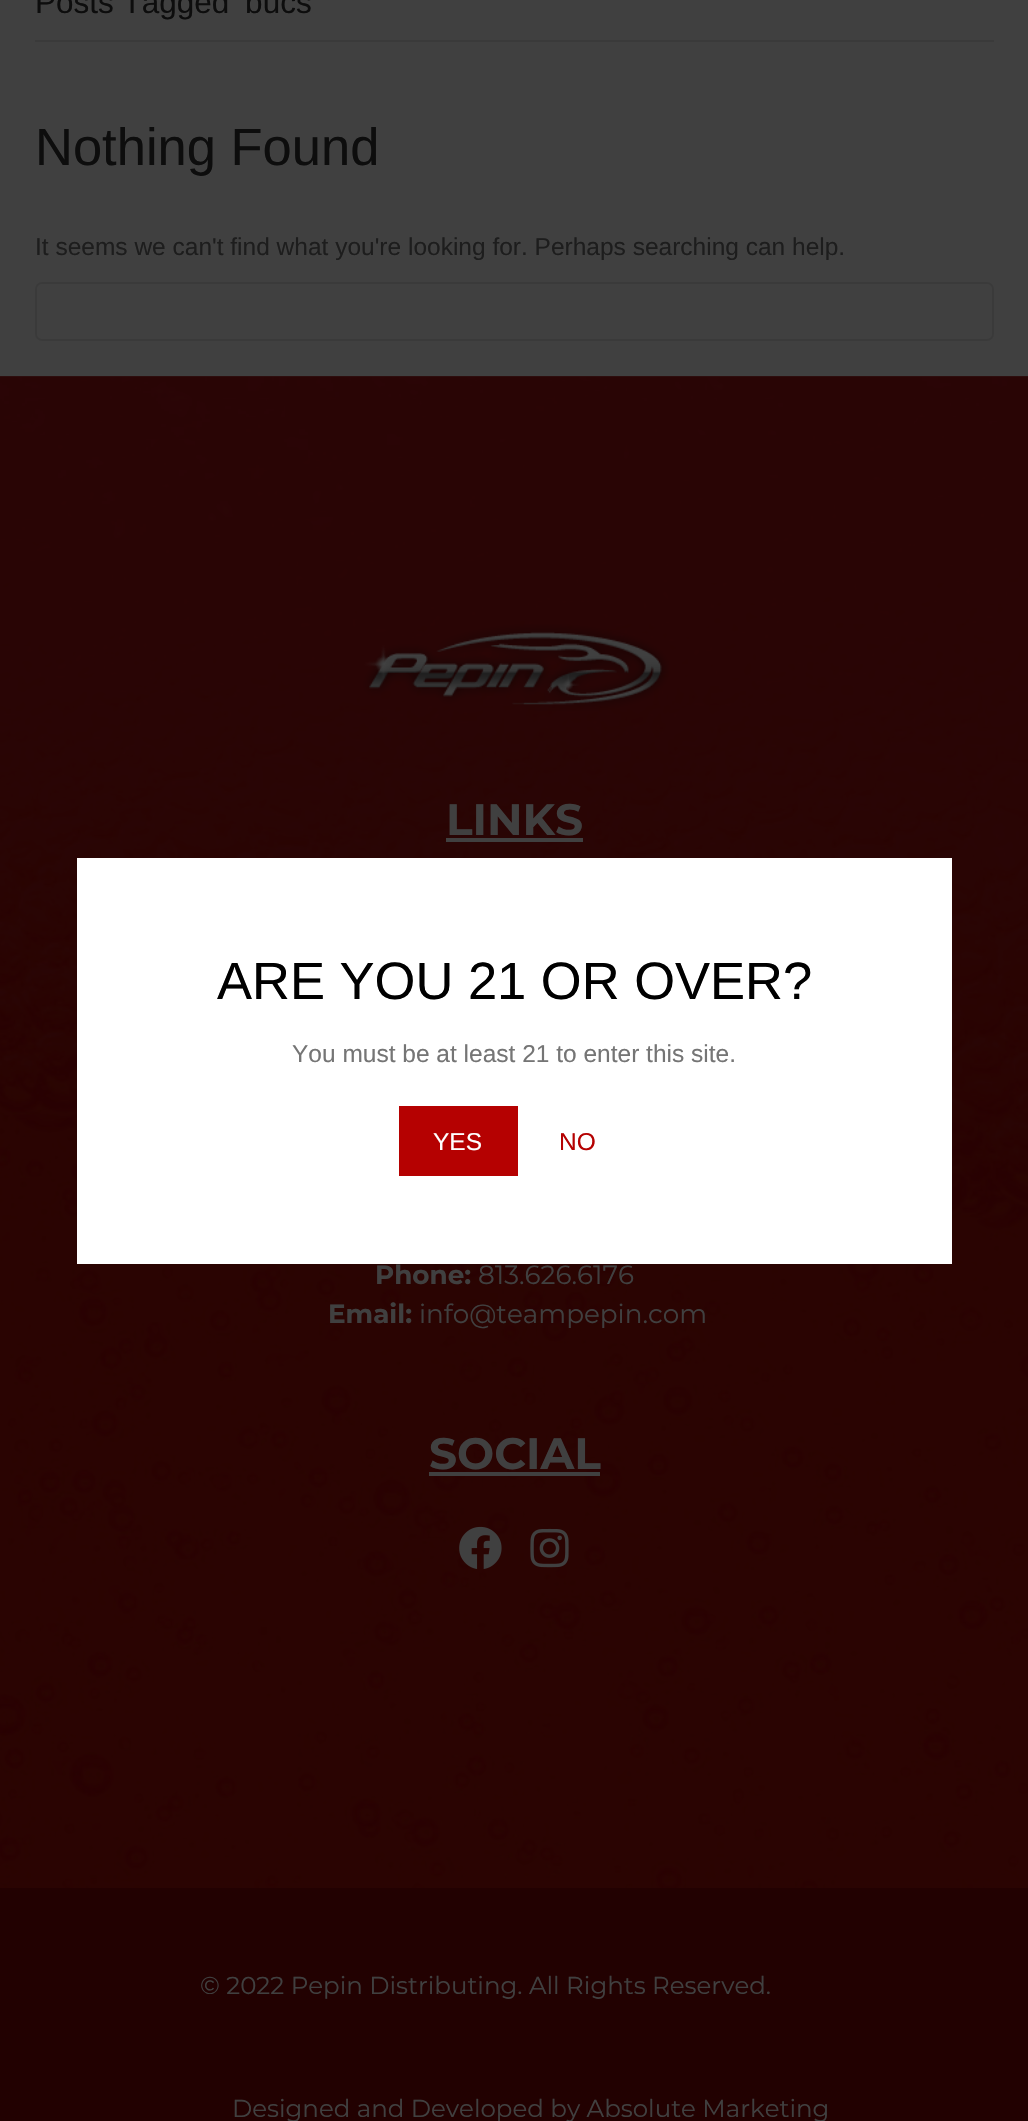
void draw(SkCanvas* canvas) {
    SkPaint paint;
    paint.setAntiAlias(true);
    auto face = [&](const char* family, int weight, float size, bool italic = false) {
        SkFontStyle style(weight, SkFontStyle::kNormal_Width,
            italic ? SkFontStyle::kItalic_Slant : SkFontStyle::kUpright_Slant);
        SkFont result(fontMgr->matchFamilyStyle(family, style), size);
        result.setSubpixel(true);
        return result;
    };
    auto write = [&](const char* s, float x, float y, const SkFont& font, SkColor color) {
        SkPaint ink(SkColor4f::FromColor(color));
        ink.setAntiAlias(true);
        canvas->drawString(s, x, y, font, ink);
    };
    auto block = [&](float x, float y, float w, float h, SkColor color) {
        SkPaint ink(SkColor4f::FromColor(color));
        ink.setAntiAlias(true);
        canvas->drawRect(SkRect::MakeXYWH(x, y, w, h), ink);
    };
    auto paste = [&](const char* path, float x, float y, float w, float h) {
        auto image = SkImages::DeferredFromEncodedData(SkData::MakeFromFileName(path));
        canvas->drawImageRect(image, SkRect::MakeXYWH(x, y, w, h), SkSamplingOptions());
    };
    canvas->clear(SkColorSetRGB(47, 20, 20));
    block(0, 0, 1028, 376, SkColorSetRGB(64, 64, 64));
    block(35, 40, 959, 2, SkColorSetRGB(58, 58, 58));
    auto kFont1 = face("Liberation Sans", 400, 31.5f);
    write("Posts Tagged ‘bucs", 35, 13, kFont1, SkColorSetRGB(13, 13, 13));
    auto kFont2 = face("Liberation Sans", 400, 52.5f);
    write("Nothing Found", 35, 165, kFont2, SkColorSetRGB(13, 13, 13));
    auto kFont3 = face("Liberation Sans", 400, 24.5f);
    write("It seems we can't find what you're looking for. Perhaps searching can help.", 35, 255, kFont3, SkColorSetRGB(29, 29, 29));
    paint.setStyle(SkPaint::kStroke_Style);
    paint.setStrokeWidth(2);
    paint.setColor(SkColorSetRGB(58, 58, 58));
    canvas->drawRoundRect(SkRect::MakeXYWH(36, 283, 957, 57), 6, 6, paint);
    paste("pic1.png", 0, 376, 1028, 1512);
    paste("pic2.png", 363, 624, 306, 87);
    auto kFont4 = face("Montserrat", 700, 44);
    write("LINKS", 446, 835, kFont4, SkColorSetRGB(64, 64, 64));
    block(446, 838, 137, 4, SkColorSetRGB(64, 64, 64));
    auto kFont5 = face("Montserrat", 700, 26.25f);
    write("Phone:", 375, 1284, kFont5, SkColorSetRGB(64, 64, 64));
    auto kFont6 = face("Montserrat", 400, 26.25f);
    write("813.626.6176", 478, 1284, kFont6, SkColorSetRGB(64, 64, 64));
    write("Email:", 328, 1323, kFont5, SkColorSetRGB(64, 64, 64));
    write("info@teampepin.com", 419, 1323, kFont6, SkColorSetRGB(64, 64, 64));
    write("SOCIAL", 429, 1469, kFont4, SkColorSetRGB(64, 64, 64));
    block(429, 1472, 171, 4, SkColorSetRGB(64, 64, 64));
    paste("pic3.png", 459, 1526, 43, 43);
    paste("pic4.png", 530, 1528, 39, 40);
    block(0, 1888, 1028, 233, SkColorSetRGB(34, 1, 1));
    auto kFont7 = face("Montserrat", 400, 24.5f);
    write("© 2022 Pepin Distributing. All Rights Reserved.", 200, 1994, kFont7, SkColorSetRGB(64, 64, 64));
    write("Designed and Developed by Absolute Marketing", 232, 2117, kFont7, SkColorSetRGB(64, 64, 64));
    block(77, 858, 875, 406, SK_ColorWHITE);
    write("ARE YOU 21 OR OVER?", 217, 999, kFont2, SK_ColorBLACK);
    write("You must be at least 21 to enter this site.", 292, 1062, kFont3, SkColorSetRGB(117, 117, 117));
    block(399, 1106, 119, 70, SkColorSetRGB(181, 1, 1));
    write("YES", 433, 1150, kFont3, SK_ColorWHITE);
    write("NO", 559, 1150, kFont3, SkColorSetRGB(181, 1, 1));
}
